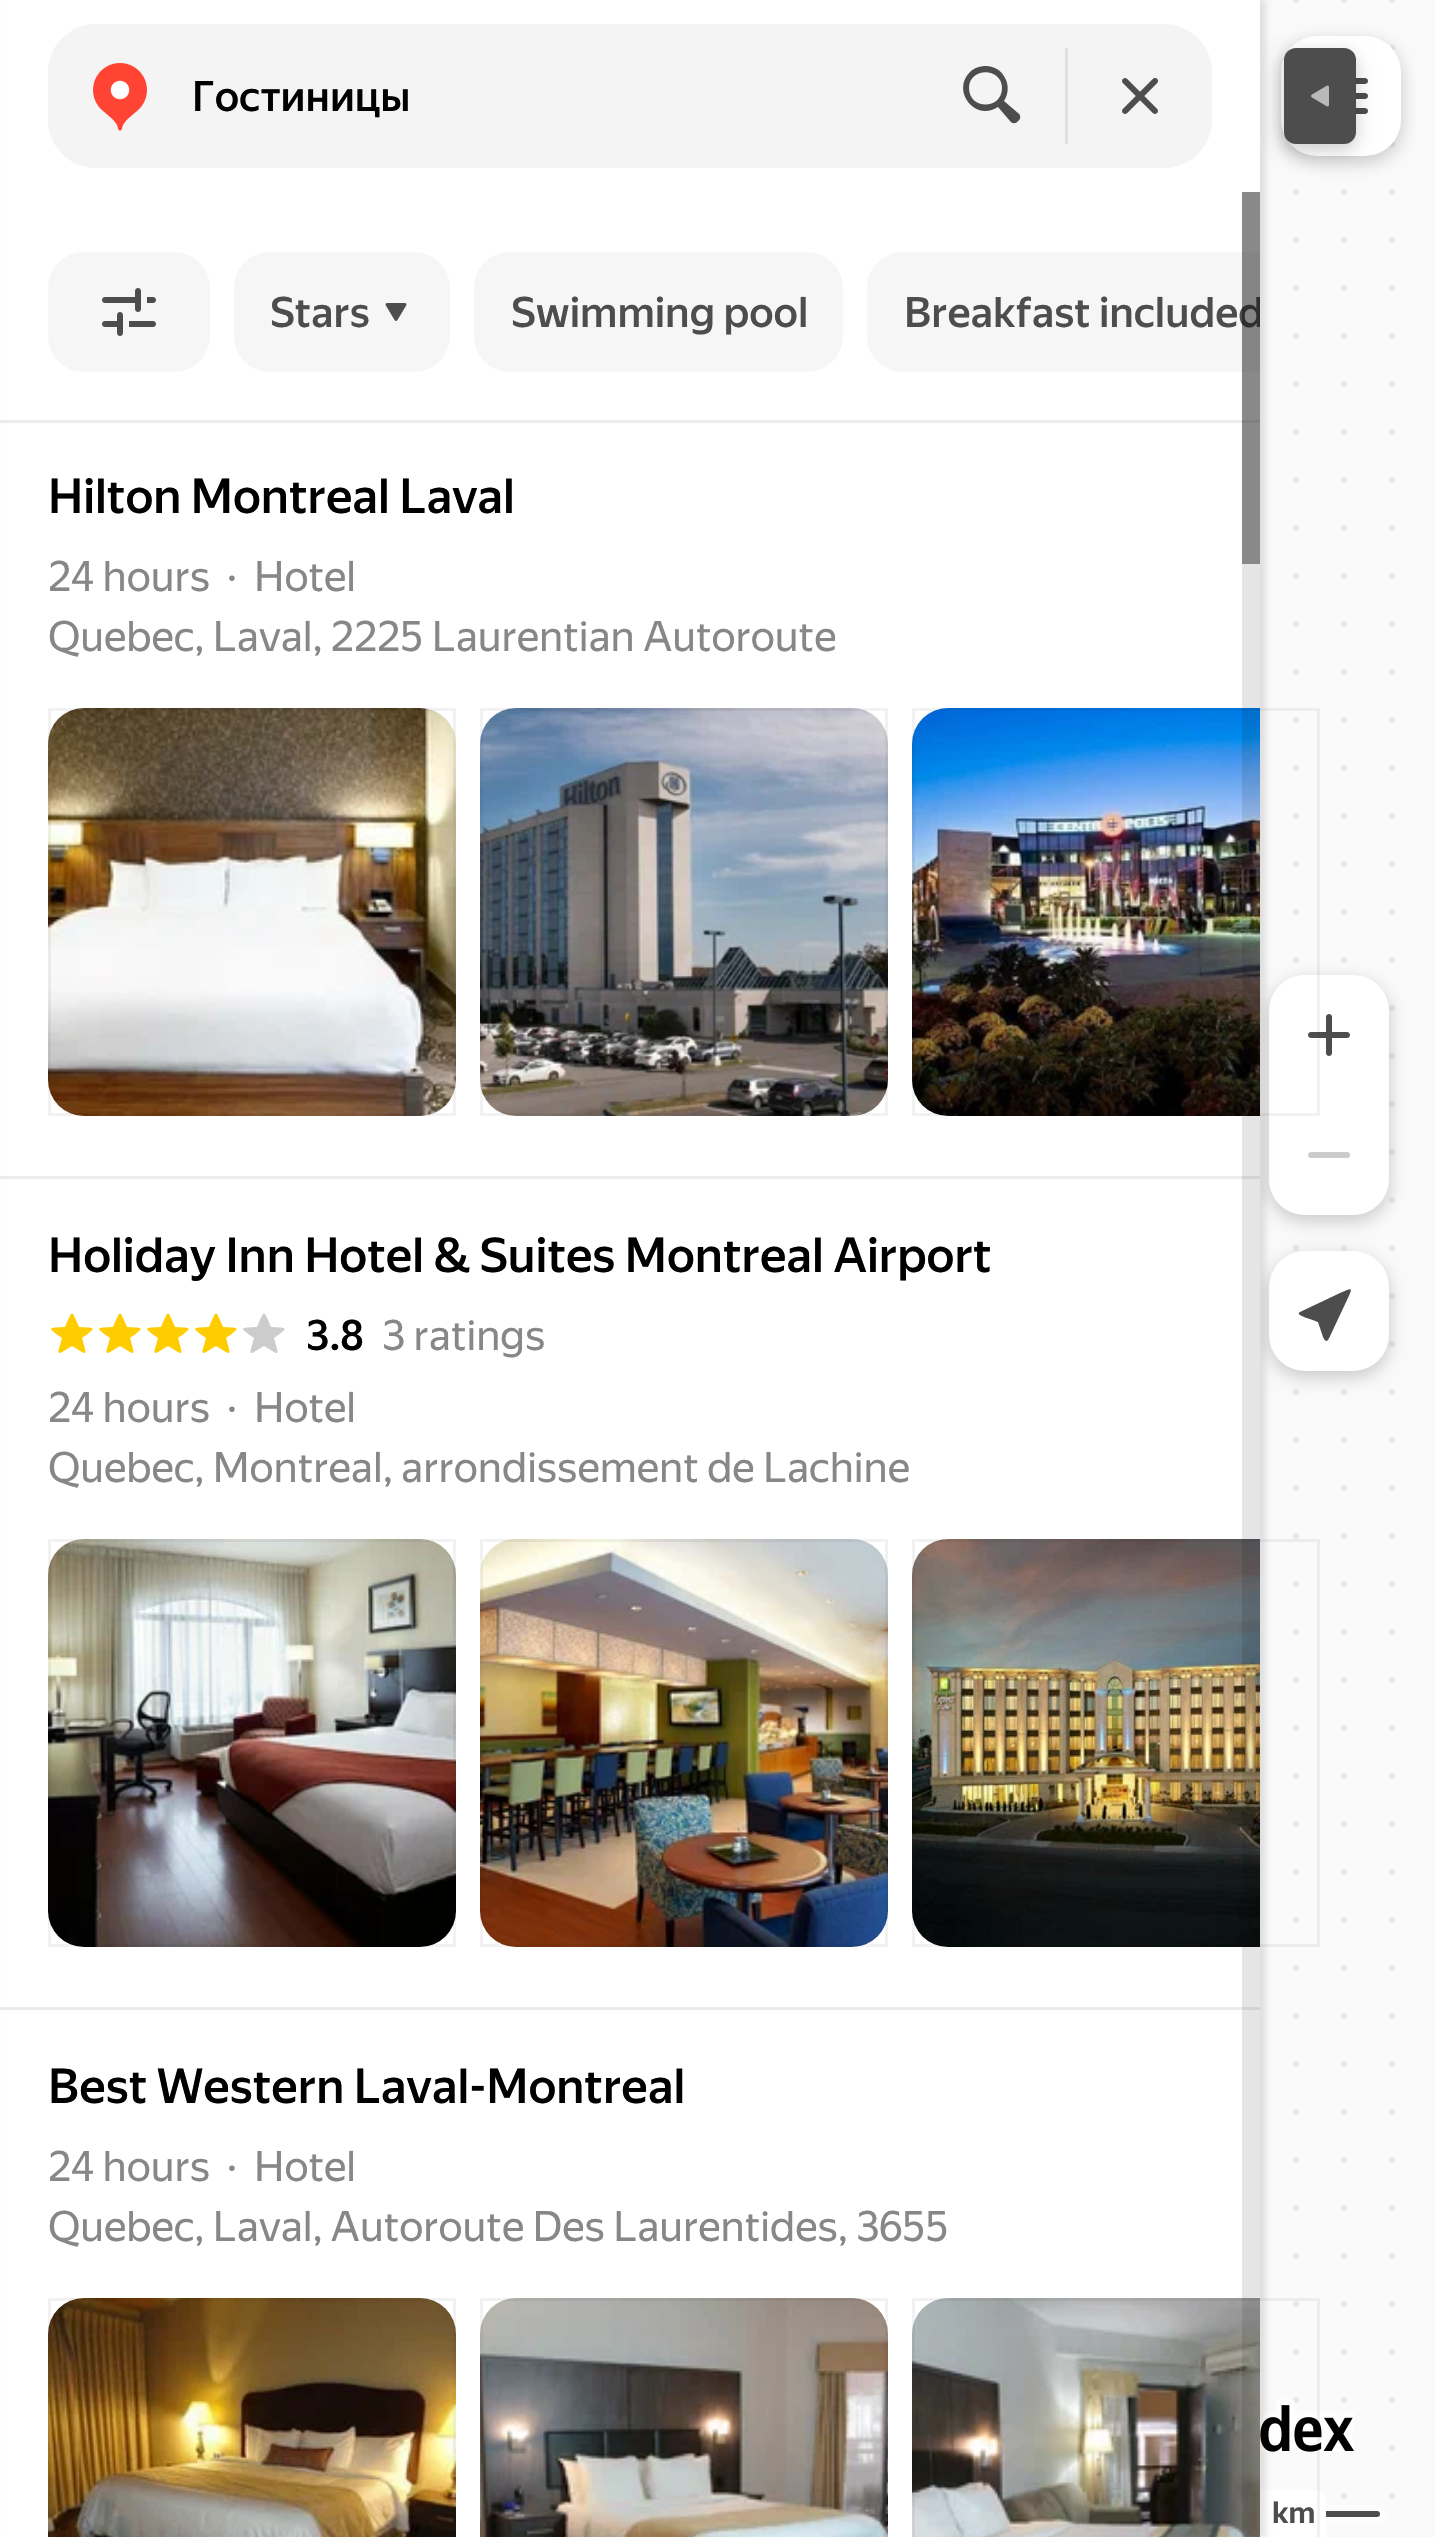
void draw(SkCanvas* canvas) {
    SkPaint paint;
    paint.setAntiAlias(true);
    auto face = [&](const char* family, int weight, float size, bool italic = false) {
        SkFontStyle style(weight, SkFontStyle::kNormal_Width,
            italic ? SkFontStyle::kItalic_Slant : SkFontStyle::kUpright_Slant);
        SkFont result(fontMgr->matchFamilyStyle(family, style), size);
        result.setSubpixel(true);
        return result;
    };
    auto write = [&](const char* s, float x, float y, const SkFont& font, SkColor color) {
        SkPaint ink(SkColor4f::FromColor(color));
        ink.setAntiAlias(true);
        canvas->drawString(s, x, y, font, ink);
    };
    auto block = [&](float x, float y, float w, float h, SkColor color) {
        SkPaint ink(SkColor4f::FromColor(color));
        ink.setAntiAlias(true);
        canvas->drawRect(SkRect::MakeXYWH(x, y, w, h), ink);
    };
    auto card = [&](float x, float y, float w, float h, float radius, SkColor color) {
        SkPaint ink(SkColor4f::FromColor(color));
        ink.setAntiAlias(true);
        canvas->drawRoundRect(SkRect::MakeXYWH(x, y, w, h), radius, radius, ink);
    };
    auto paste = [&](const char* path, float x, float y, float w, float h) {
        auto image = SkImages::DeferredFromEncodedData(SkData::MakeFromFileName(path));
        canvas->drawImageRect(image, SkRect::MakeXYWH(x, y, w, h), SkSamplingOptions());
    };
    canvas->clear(SK_ColorWHITE);
    paste("pic1.png", 1260, 0, 175, 2537);
    paint.setColor(SkColorSetARGB(51, 0, 0, 0));
    paint.setMaskFilter(SkMaskFilter::MakeBlur(kNormal_SkBlurStyle, 9));
    canvas->drawRoundRect(SkRect::MakeXYWH(1269, 981, 120, 240), 36, 36, paint);
    paint.setMaskFilter(nullptr);
    paint.setColor(SK_ColorWHITE);
    canvas->drawPath(SkPathBuilder().moveTo(1305, 975).lineTo(1353, 975).cubicTo(1373, 975, 1389, 991, 1389, 1011).lineTo(1389, 1095).lineTo(1269, 1095).lineTo(1269, 1011).cubicTo(1269, 991, 1285, 975, 1305, 975).close().detach(), paint);
    canvas->drawPath(SkPathBuilder().moveTo(1269, 1095).lineTo(1389, 1095).lineTo(1389, 1179).cubicTo(1389, 1199, 1373, 1215, 1353, 1215).lineTo(1305, 1215).cubicTo(1285, 1215, 1269, 1199, 1269, 1179).close().detach(), paint);
    paint.setColor(SkColorSetARGB(51, 0, 0, 0));
    paint.setMaskFilter(SkMaskFilter::MakeBlur(kNormal_SkBlurStyle, 9));
    canvas->drawRoundRect(SkRect::MakeXYWH(1269, 1257, 120, 120), 36, 36, paint);
    paint.setMaskFilter(nullptr);
    card(1269, 1251, 120, 120, 36, SK_ColorWHITE);
    paste("pic18.png", 1260, 2399, 94, 53);
    card(1128, 2505, 258, 18, 9, SkColorSetARGB(153, 255, 255, 255));
    card(1134, 2511, 246, 6, 3, SkColorSetRGB(77, 77, 77));
    paint.setColor(SK_ColorWHITE);
    canvas->drawPath(SkPathBuilder().moveTo(1200, 2490).lineTo(1314, 2490).cubicTo(1320.5f, 2490, 1326, 2495.5f, 1326, 2502).lineTo(1326, 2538).lineTo(1188, 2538).lineTo(1188, 2502).cubicTo(1188, 2495.5f, 1193.5f, 2490, 1200, 2490).close().detach(), paint);
    paint.setColor(SkColorSetARGB(26, 0, 0, 0));
    paint.setMaskFilter(SkMaskFilter::MakeBlur(kNormal_SkBlurStyle, 3));
    canvas->drawRect(SkRect::MakeXYWH(6, 0, 1260, 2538), paint);
    paint.setMaskFilter(nullptr);
    paint.setColor(SkColorSetARGB(51, 0, 0, 0));
    paint.setMaskFilter(SkMaskFilter::MakeBlur(kNormal_SkBlurStyle, 9));
    canvas->drawRoundRect(SkRect::MakeXYWH(1281, 42, 120, 120), 36, 36, paint);
    paint.setMaskFilter(nullptr);
    card(1281, 36, 120, 120, 36, SK_ColorWHITE);
    paste("pic4.png", 1356, 78, 12, 36);
    paint.setMaskFilter(SkMaskFilter::MakeBlur(kNormal_SkBlurStyle, 9));
    canvas->drawRoundRect(SkRect::MakeXYWH(1284, 54, 72, 96), 12, 12, paint);
    paint.setMaskFilter(nullptr);
    block(2, 0, 1258, 2537, SK_ColorWHITE);
    card(48, 24, 1164, 144, 48, SkColorSetRGB(244, 244, 244));
    paste("pic2.png", 93, 63, 54, 68);
    auto kFont1 = face("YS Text", 500, 42);
    write("Гостиницы", 192, 111, kFont1, SK_ColorBLACK);
    paint.setColor(SkColorSetRGB(77, 77, 77));
    canvas->drawPath(SkPathBuilder(SkPathFillType::kEvenOdd).moveTo(986, 66).cubicTo(980, 66, 974, 68, 970, 72).cubicTo(951, 91, 975, 122, 998, 107).lineTo(1010, 121).cubicTo(1012, 124, 1016, 124, 1018, 121).cubicTo(1021, 119, 1021, 115, 1018, 113).lineTo(1004, 101).cubicTo(1014, 86, 1003, 66, 986, 66).close().moveTo(969, 88).cubicTo(969, 67, 1002, 67, 1002, 88).cubicTo(1002, 110, 969, 110, 969, 88).close().detach(), paint);
    block(1065, 48, 3, 96, SkColorSetRGB(224, 224, 224));
    paste("pic3.png", 1122, 78, 36, 36);
    paste("pic5.png", 1308, 1014, 42, 42);
    paint.setColor(SkColorSetRGB(204, 204, 204));
    canvas->drawPath(SkPathBuilder(SkPathFillType::kEvenOdd).moveTo(1308, 1155).cubicTo(1308, 1153, 1309, 1152, 1311, 1152).lineTo(1347, 1152).cubicTo(1349, 1152, 1350, 1153, 1350, 1155).cubicTo(1350, 1157, 1349, 1158, 1347, 1158).lineTo(1311, 1158).cubicTo(1309, 1158, 1308, 1157, 1308, 1155).close().detach(), paint);
    paint.setColor(SkColorSetRGB(77, 77, 77));
    canvas->drawPath(SkPathBuilder(SkPathFillType::kEvenOdd).moveTo(1300, 1312).lineTo(1340, 1293).cubicTo(1353, 1287, 1353, 1287, 1347, 1300).lineTo(1332, 1332).cubicTo(1329, 1338, 1327, 1346, 1323, 1337).lineTo(1318, 1322).cubicTo(1311, 1319, 1294, 1315, 1300, 1312).close().detach(), paint);
    card(1284, 48, 72, 96, 12, SkColorSetRGB(77, 77, 77));
    paste("pic6.png", 1311, 85, 18, 22);
    block(0, 420, 1260, 3, SkColorSetRGB(235, 235, 235));
    paint.setColor(SkColorSetRGB(246, 246, 246));
    canvas->drawPath(SkPathBuilder().moveTo(903, 252).lineTo(1260, 252).lineTo(1260, 372).lineTo(903, 372).cubicTo(883, 372, 867, 356, 867, 336).lineTo(867, 288).cubicTo(867, 268, 883, 252, 903, 252).close().detach(), paint);
    block(0, 1176, 1260, 3, SkColorSetRGB(235, 235, 235));
    paint.setColor(SkColorSetRGB(244, 244, 244));
    canvas->drawPath(SkPathBuilder().moveTo(948, 708).lineTo(1260, 708).lineTo(1260, 1116).lineTo(948, 1116).cubicTo(928, 1116, 912, 1100, 912, 1080).lineTo(912, 744).cubicTo(912, 724, 928, 708, 948, 708).close().detach(), paint);
    paste("pic11.png", 912, 708, 348, 408);
    paint.setStyle(SkPaint::kStroke_Style);
    paint.setStrokeWidth(3);
    paint.setColor(SkColorSetARGB(13, 0, 0, 0));
    canvas->drawRect(SkRect::MakeXYWH(913.5f, 709.5f, 405, 405), paint);
    block(0, 2007, 1260, 3, SkColorSetRGB(235, 235, 235));
    paint.setStyle(SkPaint::kFill_Style);
    paint.setColor(SkColorSetRGB(244, 244, 244));
    canvas->drawPath(SkPathBuilder().moveTo(948, 1539).lineTo(1260, 1539).lineTo(1260, 1947).lineTo(948, 1947).cubicTo(928, 1947, 912, 1931, 912, 1911).lineTo(912, 1575).cubicTo(912, 1555, 928, 1539, 948, 1539).close().detach(), paint);
    paste("pic14.png", 912, 1539, 348, 408);
    paint.setStyle(SkPaint::kStroke_Style);
    paint.setColor(SkColorSetARGB(13, 0, 0, 0));
    canvas->drawRect(SkRect::MakeXYWH(913.5f, 1540.5f, 405, 405), paint);
    paint.setStyle(SkPaint::kFill_Style);
    paint.setColor(SkColorSetRGB(244, 244, 244));
    canvas->drawPath(SkPathBuilder().moveTo(948, 2298).lineTo(1260, 2298).lineTo(1260, 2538).lineTo(912, 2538).lineTo(912, 2334).cubicTo(912, 2314, 928, 2298, 948, 2298).close().detach(), paint);
    paste("pic17.png", 912, 2298, 348, 239);
    paint.setStyle(SkPaint::kStroke_Style);
    paint.setColor(SkColorSetARGB(13, 0, 0, 0));
    canvas->drawRect(SkRect::MakeXYWH(913.5f, 2299.5f, 405, 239), paint);
    block(1242, 192, 18, 2345, SkColorSetARGB(26, 0, 0, 0));
    canvas->save();
    canvas->clipRect(SkRect::MakeXYWH(0, 252, 1260, 180));
    write("Breakfast included", 904, 327, kFont1, SkColorSetRGB(77, 77, 77));
    canvas->restore();
    block(1242, 192, 18, 372, SkColorSetARGB(102, 0, 0, 0));
    card(48, 252, 162, 120, 36, SkColorSetRGB(246, 246, 246));
    paste("pic7.png", 102, 288, 54, 48);
    card(234, 252, 216, 120, 36, SkColorSetRGB(246, 246, 246));
    write("Stars", 270, 327, kFont1, SkColorSetRGB(77, 77, 77));
    paste("pic8.png", 385, 303, 22, 18);
    card(474, 252, 369, 120, 36, SkColorSetRGB(246, 246, 246));
    write("Swimming pool", 511, 327, kFont1, SkColorSetRGB(77, 77, 77));
    auto kFont2 = face("YS Text", 500, 48);
    write("Hilton Montreal Laval", 48, 513, kFont2, SK_ColorBLACK);
    auto kFont3 = face("YS Text", 400, 42);
    write("24 hours", 48, 591, kFont3, SkColorSetRGB(135, 135, 135));
    write("·", 227, 591, kFont3, SkColorSetRGB(135, 135, 135));
    write("Hotel", 254, 591, kFont3, SkColorSetRGB(135, 135, 135));
    write("Quebec, Laval, 2225 Laurentian Autoroute", 48, 651, kFont3, SkColorSetRGB(135, 135, 135));
    card(48, 708, 408, 408, 36, SkColorSetRGB(244, 244, 244));
    paste("pic9.png", 48, 708, 408, 408);
    canvas->drawRect(SkRect::MakeXYWH(49.5f, 709.5f, 405, 405), paint);
    card(480, 708, 408, 408, 36, SkColorSetRGB(244, 244, 244));
    paste("pic10.png", 480, 708, 408, 408);
    canvas->drawRect(SkRect::MakeXYWH(481.5f, 709.5f, 405, 405), paint);
    write("Holiday Inn Hotel & Suites Montreal Airport", 48, 1272, kFont2, SK_ColorBLACK);
    paint.setStyle(SkPaint::kFill_Style);
    paint.setColor(SkColorSetRGB(255, 204, 0));
    canvas->drawPath(SkPathBuilder(SkPathFillType::kEvenOdd).moveTo(72, 1346).cubicTo(55, 1356, 57, 1357, 62, 1338).cubicTo(47, 1327, 47, 1328, 65, 1327).cubicTo(73, 1309, 71, 1309, 79, 1327).cubicTo(96, 1328, 97, 1327, 82, 1338).cubicTo(87, 1357, 89, 1356, 72, 1346).close().detach(), paint);
    canvas->drawPath(SkPathBuilder(SkPathFillType::kEvenOdd).moveTo(120, 1346).cubicTo(103, 1356, 105, 1357, 110, 1338).cubicTo(95, 1327, 95, 1328, 113, 1327).cubicTo(121, 1309, 119, 1309, 127, 1327).cubicTo(144, 1328, 145, 1327, 130, 1338).cubicTo(135, 1357, 137, 1356, 120, 1346).close().detach(), paint);
    canvas->drawPath(SkPathBuilder(SkPathFillType::kEvenOdd).moveTo(168, 1346).cubicTo(151, 1356, 153, 1357, 158, 1338).cubicTo(143, 1327, 143, 1328, 161, 1327).cubicTo(169, 1309, 167, 1309, 175, 1327).cubicTo(192, 1328, 193, 1327, 178, 1338).cubicTo(183, 1357, 185, 1356, 168, 1346).close().detach(), paint);
    canvas->drawPath(SkPathBuilder(SkPathFillType::kEvenOdd).moveTo(216, 1346).cubicTo(199, 1356, 201, 1357, 206, 1338).cubicTo(191, 1327, 191, 1328, 209, 1327).cubicTo(217, 1309, 215, 1309, 223, 1327).cubicTo(240, 1328, 241, 1327, 226, 1338).cubicTo(231, 1357, 233, 1356, 216, 1346).close().detach(), paint);
    paint.setColor(SkColorSetRGB(204, 204, 204));
    canvas->drawPath(SkPathBuilder(SkPathFillType::kEvenOdd).moveTo(264, 1346).cubicTo(247, 1356, 249, 1357, 254, 1338).cubicTo(239, 1327, 239, 1328, 257, 1327).cubicTo(265, 1309, 263, 1309, 271, 1327).cubicTo(288, 1328, 289, 1327, 274, 1338).cubicTo(279, 1357, 281, 1356, 264, 1346).close().detach(), paint);
    write("3.8", 306, 1350, kFont1, SK_ColorBLACK);
    write("3 ratings", 382, 1350, kFont3, SkColorSetRGB(135, 135, 135));
    write("24 hours", 48, 1422, kFont3, SkColorSetRGB(135, 135, 135));
    write("·", 227, 1422, kFont3, SkColorSetRGB(135, 135, 135));
    write("Hotel", 254, 1422, kFont3, SkColorSetRGB(135, 135, 135));
    write("Quebec, Montreal, arrondissement de Lachine", 48, 1482, kFont3, SkColorSetRGB(135, 135, 135));
    card(48, 1539, 408, 408, 36, SkColorSetRGB(244, 244, 244));
    paste("pic12.png", 48, 1539, 408, 408);
    paint.setStyle(SkPaint::kStroke_Style);
    paint.setColor(SkColorSetARGB(13, 0, 0, 0));
    canvas->drawRect(SkRect::MakeXYWH(49.5f, 1540.5f, 405, 405), paint);
    card(480, 1539, 408, 408, 36, SkColorSetRGB(244, 244, 244));
    paste("pic13.png", 480, 1539, 408, 408);
    canvas->drawRect(SkRect::MakeXYWH(481.5f, 1540.5f, 405, 405), paint);
    write("Best Western Laval-Montreal", 48, 2103, kFont2, SK_ColorBLACK);
    write("24 hours", 48, 2181, kFont3, SkColorSetRGB(135, 135, 135));
    write("·", 227, 2181, kFont3, SkColorSetRGB(135, 135, 135));
    write("Hotel", 254, 2181, kFont3, SkColorSetRGB(135, 135, 135));
    write("Quebec, Laval, Autoroute Des Laurentides, 3655", 48, 2241, kFont3, SkColorSetRGB(135, 135, 135));
    paint.setStyle(SkPaint::kFill_Style);
    paint.setColor(SkColorSetRGB(244, 244, 244));
    canvas->drawPath(SkPathBuilder().moveTo(84, 2298).lineTo(420, 2298).cubicTo(440, 2298, 456, 2314, 456, 2334).lineTo(456, 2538).lineTo(48, 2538).lineTo(48, 2334).cubicTo(48, 2314, 64, 2298, 84, 2298).close().detach(), paint);
    paste("pic15.png", 48, 2298, 408, 239);
    paint.setStyle(SkPaint::kStroke_Style);
    paint.setColor(SkColorSetARGB(13, 0, 0, 0));
    canvas->drawRect(SkRect::MakeXYWH(49.5f, 2299.5f, 405, 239), paint);
    paint.setStyle(SkPaint::kFill_Style);
    paint.setColor(SkColorSetRGB(244, 244, 244));
    canvas->drawPath(SkPathBuilder().moveTo(516, 2298).lineTo(852, 2298).cubicTo(872, 2298, 888, 2314, 888, 2334).lineTo(888, 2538).lineTo(480, 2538).lineTo(480, 2334).cubicTo(480, 2314, 496, 2298, 516, 2298).close().detach(), paint);
    paste("pic16.png", 480, 2298, 408, 239);
    paint.setStyle(SkPaint::kStroke_Style);
    paint.setColor(SkColorSetARGB(13, 0, 0, 0));
    canvas->drawRect(SkRect::MakeXYWH(481.5f, 2299.5f, 405, 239), paint);
    auto kFont4 = face("YS Text", 700, 30);
    write("km", 1272, 2523, kFont4, SkColorSetRGB(77, 77, 77));
}
